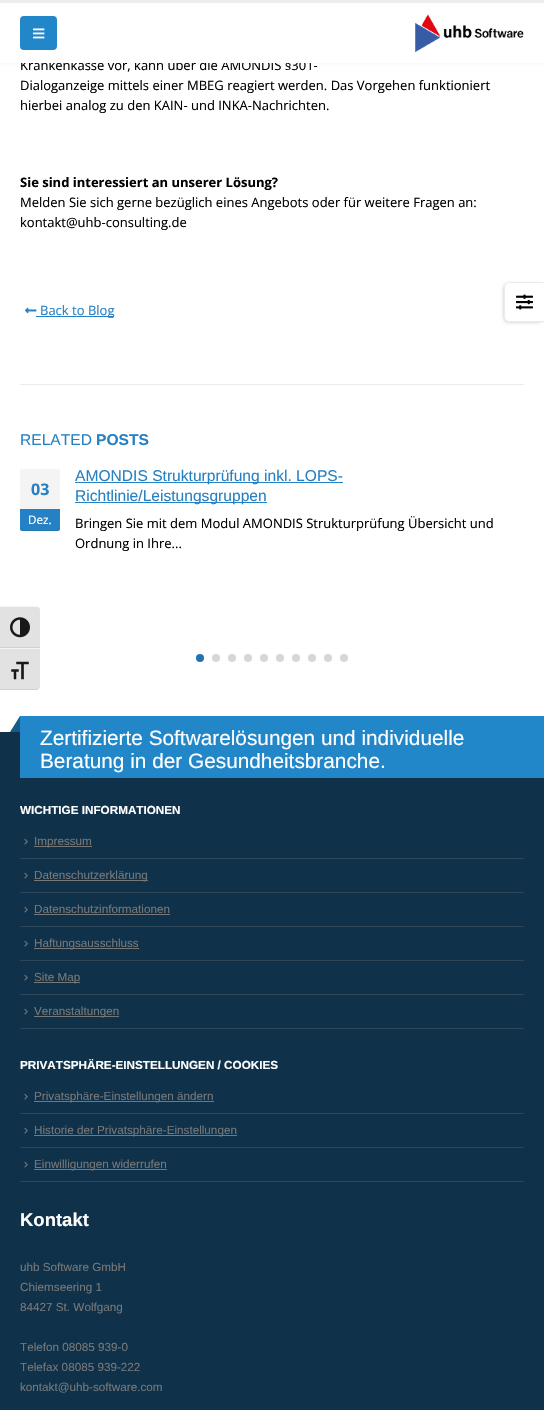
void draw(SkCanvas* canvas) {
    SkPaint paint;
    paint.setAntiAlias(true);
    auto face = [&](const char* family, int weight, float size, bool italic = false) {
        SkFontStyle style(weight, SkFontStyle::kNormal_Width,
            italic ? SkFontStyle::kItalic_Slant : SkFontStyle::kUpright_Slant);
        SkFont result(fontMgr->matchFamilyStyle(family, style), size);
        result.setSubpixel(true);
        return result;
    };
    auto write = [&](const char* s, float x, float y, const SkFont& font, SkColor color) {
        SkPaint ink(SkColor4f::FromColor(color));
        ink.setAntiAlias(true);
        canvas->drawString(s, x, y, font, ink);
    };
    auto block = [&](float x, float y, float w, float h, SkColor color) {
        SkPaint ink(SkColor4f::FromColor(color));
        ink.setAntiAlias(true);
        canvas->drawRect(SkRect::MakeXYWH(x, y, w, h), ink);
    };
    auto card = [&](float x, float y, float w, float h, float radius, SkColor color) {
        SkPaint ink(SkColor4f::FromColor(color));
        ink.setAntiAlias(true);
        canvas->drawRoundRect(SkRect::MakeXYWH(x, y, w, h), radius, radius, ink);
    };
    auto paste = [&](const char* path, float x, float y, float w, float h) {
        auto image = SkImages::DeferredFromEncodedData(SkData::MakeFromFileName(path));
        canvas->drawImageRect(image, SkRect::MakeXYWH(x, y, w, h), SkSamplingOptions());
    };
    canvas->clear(SK_ColorWHITE);
    paint.setColor(SkColorSetARGB(15, 0, 0, 0));
    paint.setMaskFilter(SkMaskFilter::MakeBlur(kNormal_SkBlurStyle, 1.5f));
    canvas->drawRect(SkRect::MakeXYWH(0, 0, 544, 63), paint);
    paint.setMaskFilter(nullptr);
    auto kFont1 = face("Open Sans", 400, 13);
    write("Krankenkasse vor, kann über die AMONDIS §301-", 20, 70, kFont1, SK_ColorBLACK);
    block(0, 3, 544, 60, SK_ColorWHITE);
    block(0, 0, 544, 3, SkColorSetRGB(237, 237, 237));
    card(20, 16, 37, 34, 4, SkColorSetRGB(34, 135, 201));
    paste("pic1.png", 33, 28, 12, 11);
    paste("pic2.png", 415, 14, 109, 38);
    write("Dialoganzeige mittels einer MBEG reagiert werden. Das Vorgehen funktioniert", 20, 90, kFont1, SK_ColorBLACK);
    write("hierbei analog zu den KAIN- und INKA-Nachrichten.", 20, 110, kFont1, SK_ColorBLACK);
    auto kFont2 = face("Open Sans", 700, 13);
    write("Sie sind interessiert an unserer Lösung?", 20, 187, kFont2, SK_ColorBLACK);
    write("Melden Sie sich gerne bezüglich eines Angebots oder für weitere Fragen an:", 20, 207, kFont1, SK_ColorBLACK);
    write("kontakt@uhb-consulting.de", 20, 227, kFont1, SK_ColorBLACK);
    paste("pic3.png", 25, 307, 12, 7);
    block(36, 316, 78, 1, SkColorSetRGB(37, 129, 196));
    write("Back to Blog", 40, 315, kFont1, SkColorSetRGB(37, 129, 196));
    block(20, 384, 504, 1, SkColorSetRGB(235, 235, 235));
    auto kFont3 = face("Liberation Sans", 400, 15.6f);
    write("RELATED", 20, 445, kFont3, SkColorSetRGB(37, 129, 196));
    auto kFont4 = face("Liberation Sans", 700, 15.6f);
    write("POSTS", 96, 445, kFont4, SkColorSetRGB(37, 129, 196));
    paint.setColor(SkColorSetRGB(244, 244, 244));
    canvas->drawPath(SkPathBuilder().moveTo(22, 469).lineTo(58, 469).cubicTo(59, 469, 60, 470, 60, 471).lineTo(60, 509).lineTo(20, 509).lineTo(20, 471).cubicTo(20, 470, 21, 469, 22, 469).close().detach(), paint);
    auto kFont5 = face("Open Sans", 700, 16);
    write("03", 31, 495, kFont5, SkColorSetRGB(37, 129, 196));
    paint.setColor(SkColorSetRGB(37, 129, 196));
    canvas->drawPath(SkPathBuilder().moveTo(20, 509).lineTo(60, 509).lineTo(60, 529).cubicTo(60, 530, 59, 531, 58, 531).lineTo(22, 531).cubicTo(21, 531, 20, 530, 20, 529).close().detach(), paint);
    paint.setColor(SkColorSetARGB(18, 0, 0, 0));
    canvas->drawPath(SkPathBuilder().moveTo(20, 528).cubicTo(20, 532, 24, 531, 28, 531).lineTo(52, 531).cubicTo(56, 531, 60, 532, 60, 528).cubicTo(60, 529, 59, 530, 58, 530).lineTo(22, 530).cubicTo(21, 530, 20, 529, 20, 528).close().detach(), paint);
    auto kFont6 = face("Open Sans", 400, 11.7f);
    write("Dez.", 28, 524, kFont6, SK_ColorWHITE);
    block(75, 482, 268, 1, SkColorSetRGB(37, 129, 196));
    write("AMONDIS Strukturprüfung inkl. LOPS-", 75, 481, kFont3, SkColorSetRGB(37, 129, 196));
    block(75, 502, 192, 1, SkColorSetRGB(37, 129, 196));
    write("Richtlinie/Leistungsgruppen", 75, 501, kFont3, SkColorSetRGB(37, 129, 196));
    write("Bringen Sie mit dem Modul AMONDIS Strukturprüfung Übersicht und", 75, 528, kFont1, SK_ColorBLACK);
    write("Ordnung in Ihre...", 75, 548, kFont1, SK_ColorBLACK);
    paint.setColor(SkColorSetRGB(33, 115, 175));
    canvas->drawCircle(200, 658, 4, paint);
    paint.setColor(SkColorSetRGB(214, 214, 214));
    canvas->drawCircle(216, 658, 4, paint);
    canvas->drawCircle(232, 658, 4, paint);
    canvas->drawCircle(248, 658, 4, paint);
    canvas->drawCircle(264, 658, 4, paint);
    canvas->drawCircle(280, 658, 4, paint);
    canvas->drawCircle(296, 658, 4, paint);
    canvas->drawCircle(312, 658, 4, paint);
    canvas->drawCircle(328, 658, 4, paint);
    canvas->drawCircle(344, 658, 4, paint);
    paint.setColor(SkColorSetARGB(38, 0, 0, 0));
    paint.setMaskFilter(SkMaskFilter::MakeBlur(kNormal_SkBlurStyle, 1.5f));
    canvas->drawRoundRect(SkRect::MakeXYWH(503, 283, 40, 40), 6, 6, paint);
    paint.setMaskFilter(nullptr);
    paint.setColor(SK_ColorWHITE);
    canvas->drawPath(SkPathBuilder().moveTo(510, 282).lineTo(544, 282).lineTo(544, 322).lineTo(510, 322).cubicTo(506.5f, 322, 504, 319.5f, 504, 316).lineTo(504, 288).cubicTo(504, 284.5f, 506.5f, 282, 510, 282).close().detach(), paint);
    paint.setColor(SkColorSetRGB(235, 235, 235));
    canvas->drawPath(SkPathBuilder(SkPathFillType::kEvenOdd).moveTo(510, 282).lineTo(544, 282).lineTo(544, 322).lineTo(510, 322).cubicTo(507, 322, 504, 319, 504, 316).lineTo(504, 288).cubicTo(504, 285, 507, 282, 510, 282).close().moveTo(510, 283).lineTo(544, 283).lineTo(544, 321).lineTo(510, 321).cubicTo(507, 321, 505, 319, 505, 316).lineTo(505, 288).cubicTo(505, 285, 507, 283, 510, 283).close().detach(), paint);
    paste("pic4.png", 516, 294, 17, 16);
    block(0, 732, 544, 678, SkColorSetRGB(15, 50, 74));
    block(20, 716, 524, 62, SkColorSetRGB(34, 135, 201));
    paint.setColor(SkColorSetRGB(23, 92, 136));
    canvas->drawPath(SkPathBuilder().moveTo(20, 716).lineTo(20, 732).lineTo(10, 732).close().detach(), paint);
    auto kFont7 = face("Liberation Sans", 400, 20.8f);
    write("Zertifizierte Softwarelösungen und individuelle", 40, 745, kFont7, SK_ColorWHITE);
    write("Beratung in der Gesundheitsbranche.", 40, 768, kFont7, SK_ColorWHITE);
    auto kFont8 = face("Liberation Sans", 700, 11.7f);
    write("WICHTIGE INFORMATIONEN", 20, 814, kFont8, SK_ColorWHITE);
    block(20, 1028, 504, 1, SkColorSetRGB(46, 71, 88));
    paste("pic5.png", 24, 838, 4, 7);
    block(34, 846, 58, 1, SkColorSetRGB(119, 119, 119));
    auto kFont9 = face("Liberation Sans", 400, 11.7f);
    write("Impressum", 34, 845, kFont9, SkColorSetRGB(119, 119, 119));
    block(20, 858, 504, 1, SkColorSetRGB(46, 71, 88));
    paste("pic5.png", 24, 872, 4, 7);
    block(34, 880, 114, 1, SkColorSetRGB(119, 119, 119));
    write("Datenschutzerklärung", 34, 879, kFont9, SkColorSetRGB(119, 119, 119));
    block(20, 892, 504, 1, SkColorSetRGB(46, 71, 88));
    paste("pic5.png", 24, 906, 4, 7);
    write("Datenschutzinformationen", 34, 913, kFont9, SkColorSetRGB(119, 119, 119));
    block(34, 914, 136, 1, SkColorSetRGB(119, 119, 119));
    block(20, 926, 504, 1, SkColorSetRGB(46, 71, 88));
    paste("pic5.png", 24, 940, 4, 7);
    block(34, 948, 105, 1, SkColorSetRGB(119, 119, 119));
    write("Haftungsausschluss", 34, 947, kFont9, SkColorSetRGB(119, 119, 119));
    block(20, 960, 504, 1, SkColorSetRGB(46, 71, 88));
    paste("pic5.png", 24, 974, 4, 7);
    block(34, 982, 46, 1, SkColorSetRGB(119, 119, 119));
    write("Site Map", 34, 981, kFont9, SkColorSetRGB(119, 119, 119));
    block(20, 994, 504, 1, SkColorSetRGB(46, 71, 88));
    paste("pic5.png", 24, 1008, 4, 7);
    block(34, 1016, 85, 1, SkColorSetRGB(119, 119, 119));
    write("Veranstaltungen", 34, 1015, kFont9, SkColorSetRGB(119, 119, 119));
    write("PRIVATSPHÄRE-EINSTELLUNGEN / COOKIES", 20, 1069, kFont8, SK_ColorWHITE);
    block(20, 1181, 504, 1, SkColorSetRGB(46, 71, 88));
    paste("pic5.png", 24, 1093, 4, 7);
    block(34, 1101, 180, 1, SkColorSetRGB(119, 119, 119));
    write("Privatsphäre-Einstellungen ändern", 34, 1100, kFont9, SkColorSetRGB(119, 119, 119));
    block(20, 1113, 504, 1, SkColorSetRGB(46, 71, 88));
    paste("pic5.png", 24, 1127, 4, 7);
    block(34, 1135, 203, 1, SkColorSetRGB(119, 119, 119));
    write("Historie der Privatsphäre-Einstellungen", 34, 1134, kFont9, SkColorSetRGB(119, 119, 119));
    block(20, 1147, 504, 1, SkColorSetRGB(46, 71, 88));
    paste("pic5.png", 24, 1161, 4, 7);
    block(34, 1169, 133, 1, SkColorSetRGB(119, 119, 119));
    write("Einwilligungen widerrufen", 34, 1168, kFont9, SkColorSetRGB(119, 119, 119));
    auto kFont10 = face("Liberation Sans", 700, 18.5f);
    write("Kontakt", 20, 1226, kFont10, SK_ColorWHITE);
    write("uhb Software GmbH", 20, 1271, kFont9, SkColorSetRGB(119, 119, 119));
    write("Chiemseering 1", 20, 1291, kFont9, SkColorSetRGB(119, 119, 119));
    write("84427 St. Wolfgang", 20, 1311, kFont9, SkColorSetRGB(119, 119, 119));
    write("Telefon 08085 939-0", 20, 1351, kFont9, SkColorSetRGB(119, 119, 119));
    write("Telefax 08085 939-222", 20, 1371, kFont9, SkColorSetRGB(119, 119, 119));
    write("kontakt@uhb-software.com", 20, 1391, kFont9, SkColorSetRGB(119, 119, 119));
    paint.setColor(SkColorSetRGB(226, 226, 226));
    canvas->drawPath(SkPathBuilder().moveTo(0, 606).lineTo(36, 606).cubicTo(38, 606, 40, 608, 40, 610).lineTo(40, 648).lineTo(0, 648).close().detach(), paint);
    paint.setColor(SkColorSetRGB(245, 245, 245));
    canvas->drawPath(SkPathBuilder().moveTo(0, 606).lineTo(0, 607).lineTo(36, 607).cubicTo(38, 607, 40, 608, 40, 610).cubicTo(40, 608, 38, 606, 36, 606).close().detach(), paint);
    block(0, 647, 40, 1, SkColorSetRGB(210, 210, 210));
    paste("pic6.png", 10, 617, 20, 21);
    paint.setColor(SkColorSetRGB(226, 226, 226));
    canvas->drawPath(SkPathBuilder().moveTo(0, 648).lineTo(40, 648).lineTo(40, 686).cubicTo(40, 688, 38, 690, 36, 690).lineTo(0, 690).close().detach(), paint);
    block(0, 648, 40, 1, SkColorSetRGB(245, 245, 245));
    paint.setColor(SkColorSetRGB(210, 210, 210));
    canvas->drawPath(SkPathBuilder().moveTo(0, 689).lineTo(0, 690).lineTo(36, 690).cubicTo(38, 690, 40, 688, 40, 686).cubicTo(40, 688, 38, 689, 36, 689).close().detach(), paint);
    paste("pic7.png", 11, 661, 18, 19);
}
